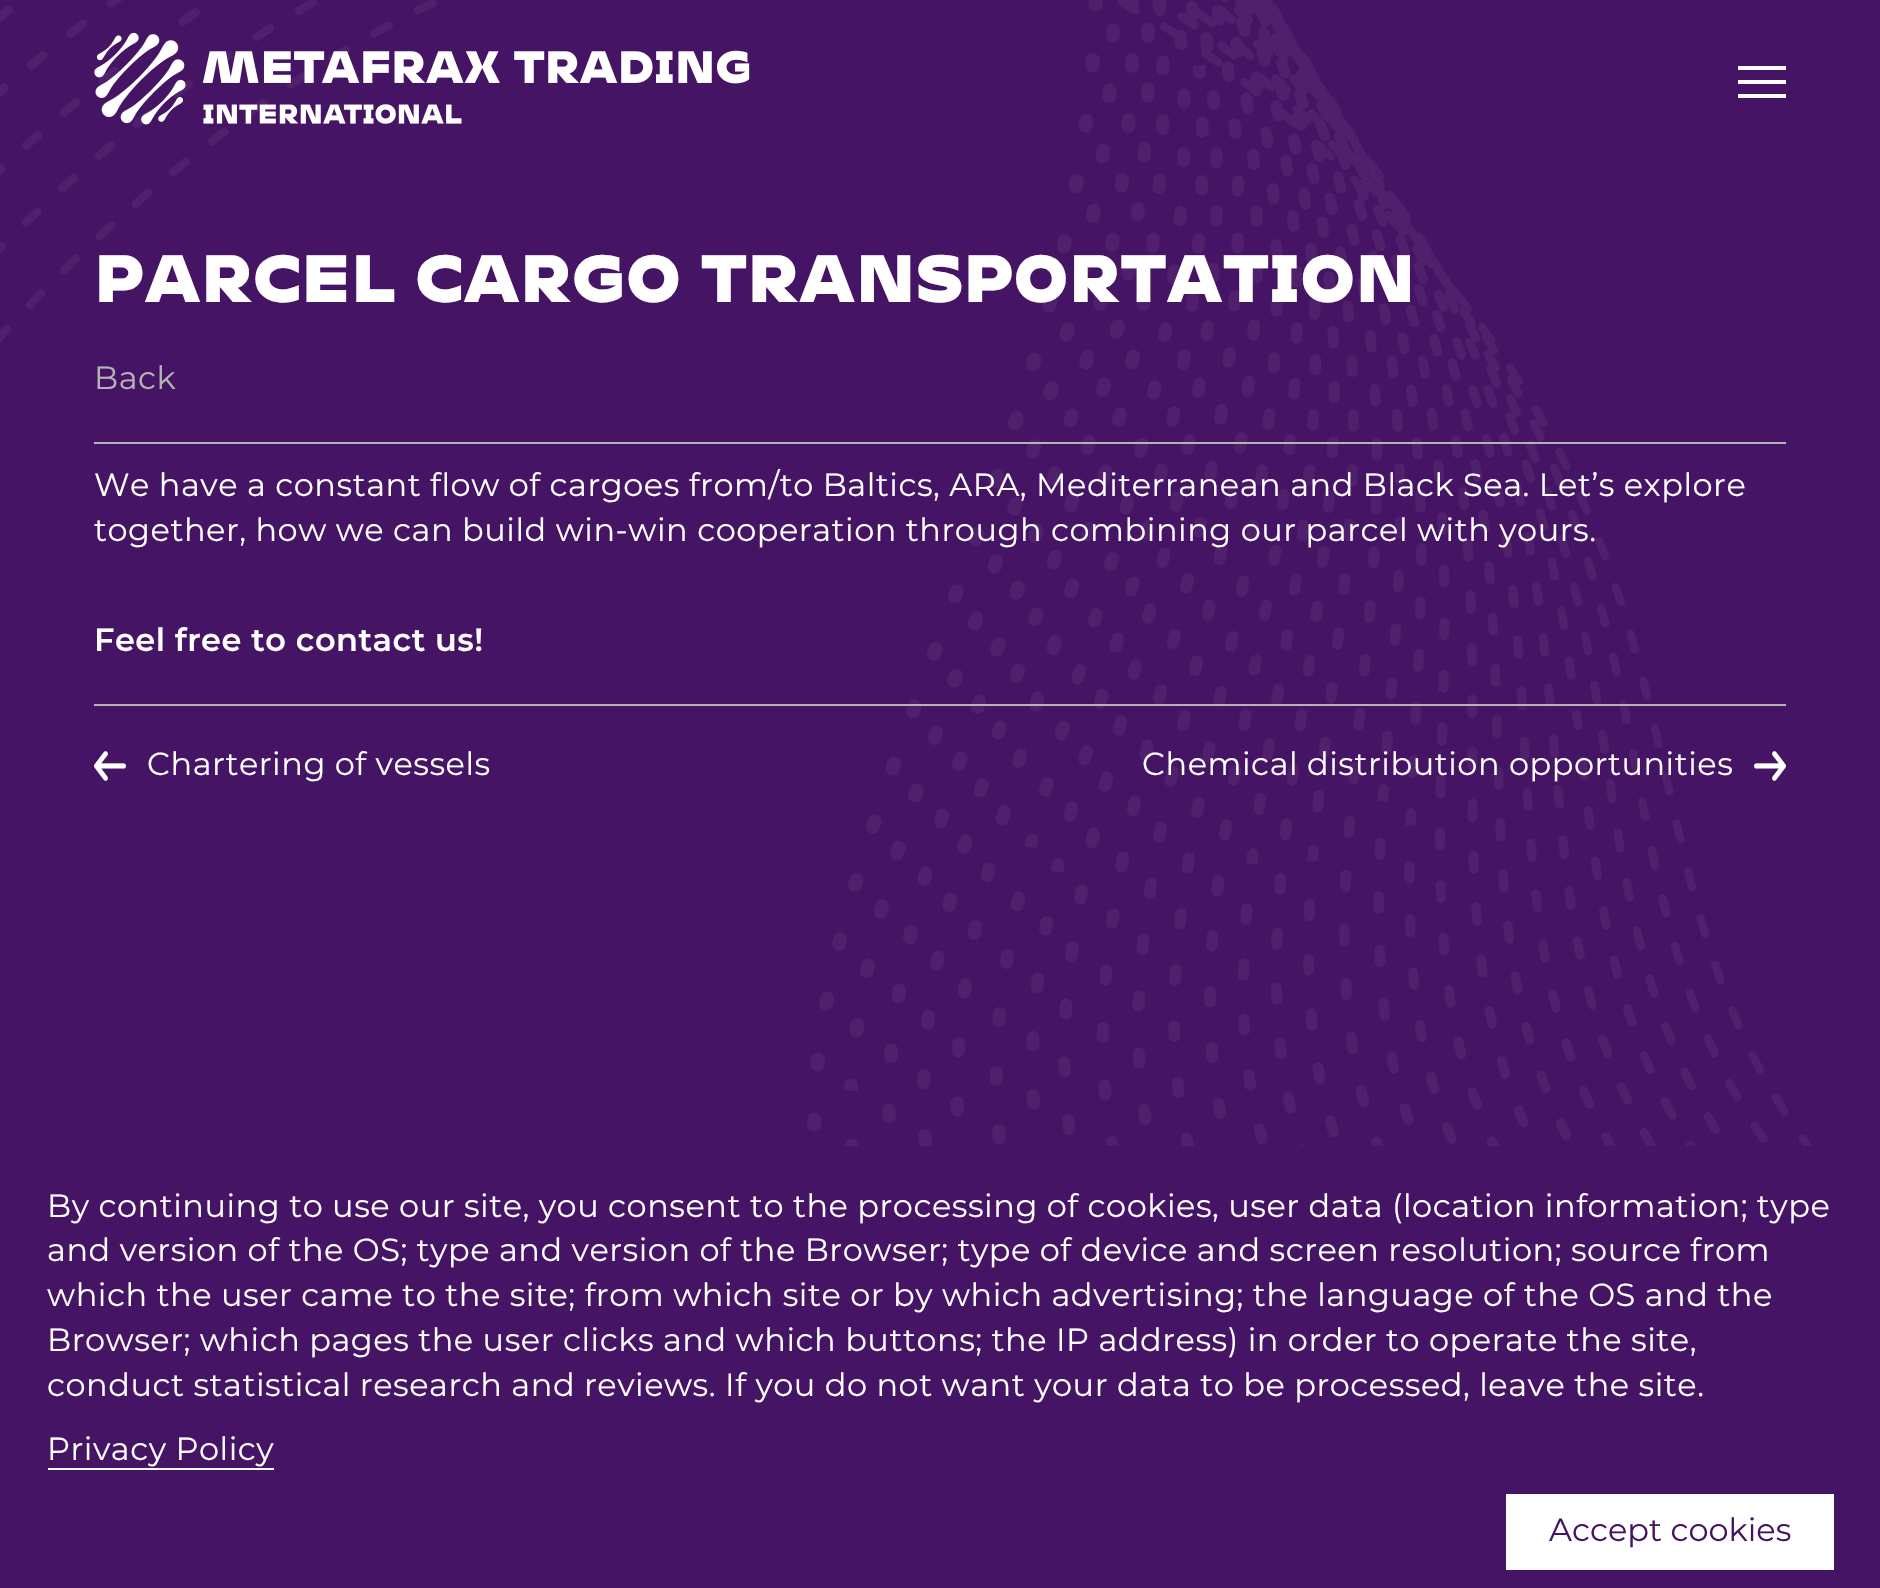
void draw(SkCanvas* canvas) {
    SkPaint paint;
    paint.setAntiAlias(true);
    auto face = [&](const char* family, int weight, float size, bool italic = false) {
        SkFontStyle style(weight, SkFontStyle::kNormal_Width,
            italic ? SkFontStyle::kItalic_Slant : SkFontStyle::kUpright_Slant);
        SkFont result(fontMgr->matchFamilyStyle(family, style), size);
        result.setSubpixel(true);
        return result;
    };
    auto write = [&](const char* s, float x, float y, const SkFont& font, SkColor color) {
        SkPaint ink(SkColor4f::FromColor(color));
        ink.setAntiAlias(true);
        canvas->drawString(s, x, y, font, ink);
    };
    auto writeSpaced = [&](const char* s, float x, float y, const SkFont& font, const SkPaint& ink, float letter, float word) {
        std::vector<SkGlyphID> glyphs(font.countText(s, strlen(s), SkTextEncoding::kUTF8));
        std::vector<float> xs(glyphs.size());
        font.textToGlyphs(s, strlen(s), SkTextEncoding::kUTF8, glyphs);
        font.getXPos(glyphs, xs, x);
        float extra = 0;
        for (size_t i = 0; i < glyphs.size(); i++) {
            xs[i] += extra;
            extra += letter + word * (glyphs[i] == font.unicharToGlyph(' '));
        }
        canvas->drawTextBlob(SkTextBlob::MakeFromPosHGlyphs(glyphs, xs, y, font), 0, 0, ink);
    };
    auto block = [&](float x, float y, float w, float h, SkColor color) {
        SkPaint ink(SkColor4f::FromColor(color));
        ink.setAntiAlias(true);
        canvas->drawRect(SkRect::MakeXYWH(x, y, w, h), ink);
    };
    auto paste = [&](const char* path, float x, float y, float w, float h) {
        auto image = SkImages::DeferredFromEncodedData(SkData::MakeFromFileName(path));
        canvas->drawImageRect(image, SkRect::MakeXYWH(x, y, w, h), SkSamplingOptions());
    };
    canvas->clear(SkColorSetRGB(70, 20, 100));
    paste("pic2.png", 0, 0, 1813, 1146);
    paste("pic1.png", 94, 32, 656, 93);
    block(1738, 66, 48, 4, SK_ColorWHITE);
    block(1738, 80, 48, 4, SK_ColorWHITE);
    block(1738, 94, 48, 4, SK_ColorWHITE);
    auto kFont1 = face("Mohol", 900, 64);
    paint.setColor(SK_ColorWHITE);
    writeSpaced("PARCEL CARGO TRANSPORTATION", 94, 302, kFont1, paint, 0.51f, 0);
    auto kFont2 = face("Montserrat", 400, 32);
    paint.setColor(SkColorSetRGB(180, 180, 180));
    writeSpaced("Back", 94, 389, kFont2, paint, 0.51f, 0);
    block(94, 442, 1692, 2, SkColorSetRGB(180, 180, 180));
    paint.setColor(SK_ColorWHITE);
    writeSpaced("We have a constant flow of cargoes from/to Baltics, ARA, Mediterranean and Black Sea. Let’s explore", 94, 496, kFont2, paint, 0.51f, 0);
    writeSpaced("together, how we can build win-win cooperation through combining our parcel with yours.", 94, 541, kFont2, paint, 0.51f, 0);
    auto kFont3 = face("Montserrat", 600, 32);
    writeSpaced("Feel free to contact us!", 94, 651, kFont3, paint, 0.51f, 0);
    block(94, 704, 1692, 2, SkColorSetRGB(180, 180, 180));
    paste("pic3.png", 94, 751, 32, 30);
    writeSpaced("Chartering of vessels", 147, 775, kFont2, paint, 0.51f, 0);
    writeSpaced("Chemical distribution opportunities", 1142, 775, kFont2, paint, 0.51f, 0);
    paste("pic4.png", 1754, 751, 32, 30);
    writeSpaced("By continuing to use our site, you consent to the processing of cookies, user data (location information; type", 47, 1217, kFont2, paint, 0.51f, 0);
    writeSpaced("and version of the OS; type and version of the Browser; type of device and screen resolution; source from", 47, 1261, kFont2, paint, 0.51f, 0);
    writeSpaced("which the user came to the site; from which site or by which advertising; the language of the OS and the", 47, 1306, kFont2, paint, 0.51f, 0);
    writeSpaced("Browser; which pages the user clicks and which buttons; the IP address) in order to operate the site,", 47, 1351, kFont2, paint, 0.51f, 0);
    writeSpaced("conduct statistical research and reviews. If you do not want your data to be processed, leave the site.", 47, 1396, kFont2, paint, 0.51f, 0);
    writeSpaced("Privacy Policy", 47, 1460, kFont2, paint, 0.51f, 0);
    block(48, 1468, 226, 2, SK_ColorWHITE);
    block(1506, 1494, 328, 76, SK_ColorWHITE);
    write("Accept cookies", 1549, 1541, kFont2, SkColorSetRGB(70, 20, 100));
}
